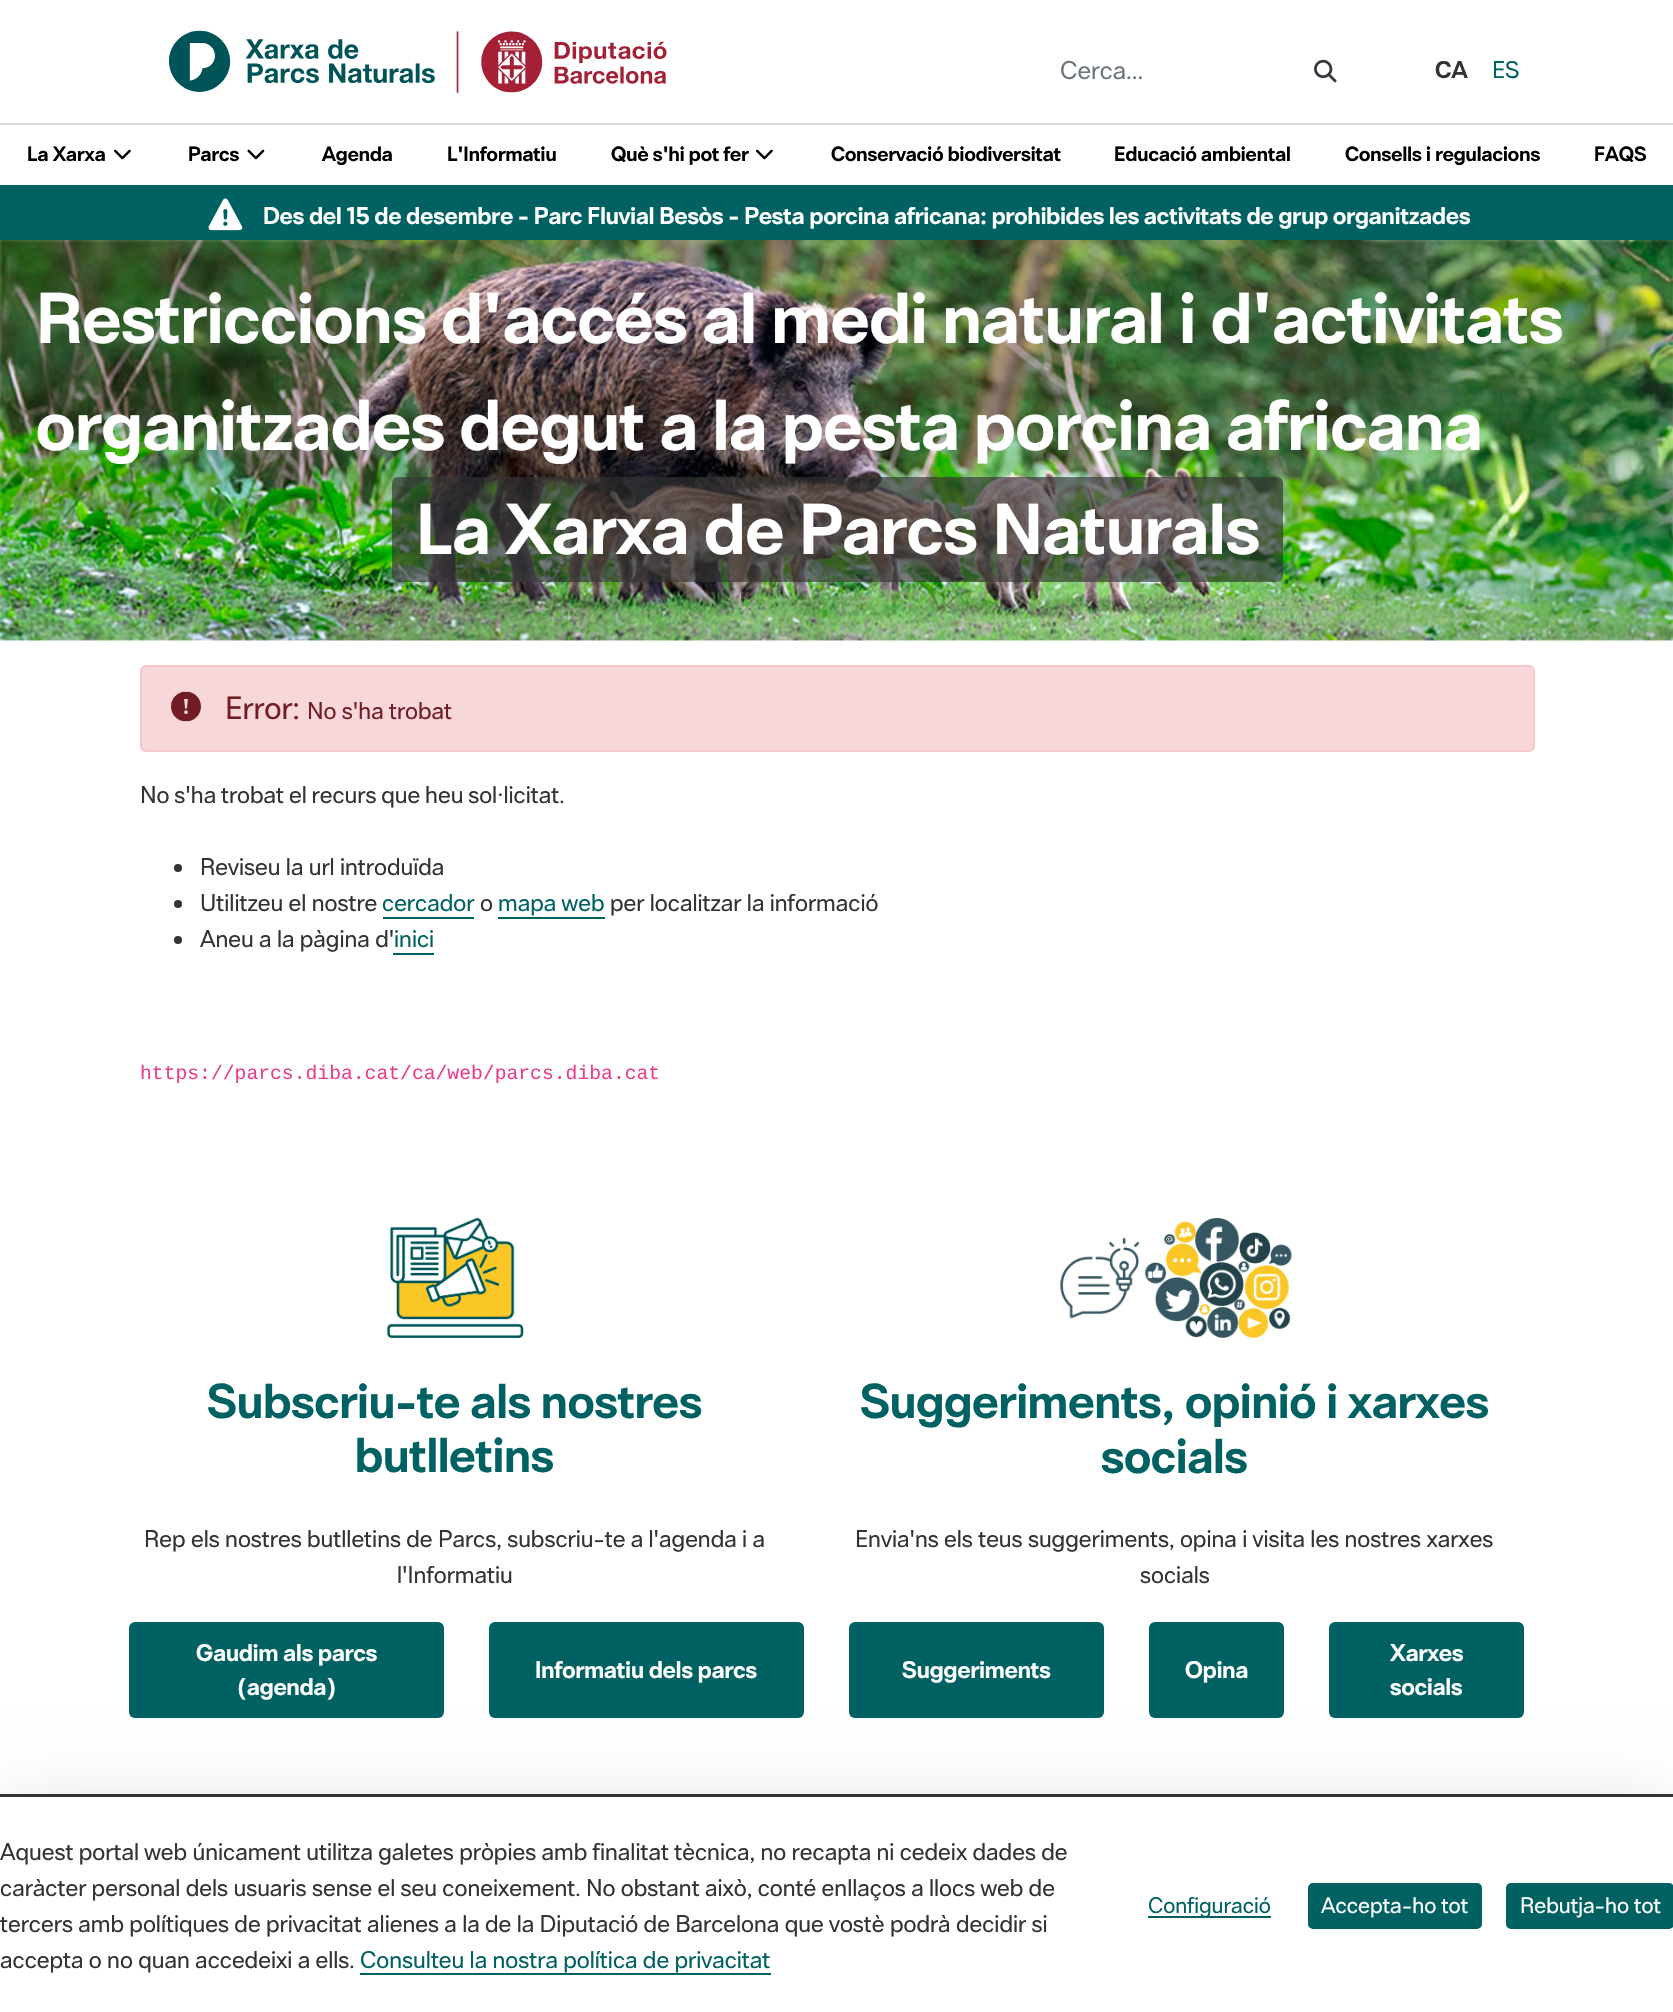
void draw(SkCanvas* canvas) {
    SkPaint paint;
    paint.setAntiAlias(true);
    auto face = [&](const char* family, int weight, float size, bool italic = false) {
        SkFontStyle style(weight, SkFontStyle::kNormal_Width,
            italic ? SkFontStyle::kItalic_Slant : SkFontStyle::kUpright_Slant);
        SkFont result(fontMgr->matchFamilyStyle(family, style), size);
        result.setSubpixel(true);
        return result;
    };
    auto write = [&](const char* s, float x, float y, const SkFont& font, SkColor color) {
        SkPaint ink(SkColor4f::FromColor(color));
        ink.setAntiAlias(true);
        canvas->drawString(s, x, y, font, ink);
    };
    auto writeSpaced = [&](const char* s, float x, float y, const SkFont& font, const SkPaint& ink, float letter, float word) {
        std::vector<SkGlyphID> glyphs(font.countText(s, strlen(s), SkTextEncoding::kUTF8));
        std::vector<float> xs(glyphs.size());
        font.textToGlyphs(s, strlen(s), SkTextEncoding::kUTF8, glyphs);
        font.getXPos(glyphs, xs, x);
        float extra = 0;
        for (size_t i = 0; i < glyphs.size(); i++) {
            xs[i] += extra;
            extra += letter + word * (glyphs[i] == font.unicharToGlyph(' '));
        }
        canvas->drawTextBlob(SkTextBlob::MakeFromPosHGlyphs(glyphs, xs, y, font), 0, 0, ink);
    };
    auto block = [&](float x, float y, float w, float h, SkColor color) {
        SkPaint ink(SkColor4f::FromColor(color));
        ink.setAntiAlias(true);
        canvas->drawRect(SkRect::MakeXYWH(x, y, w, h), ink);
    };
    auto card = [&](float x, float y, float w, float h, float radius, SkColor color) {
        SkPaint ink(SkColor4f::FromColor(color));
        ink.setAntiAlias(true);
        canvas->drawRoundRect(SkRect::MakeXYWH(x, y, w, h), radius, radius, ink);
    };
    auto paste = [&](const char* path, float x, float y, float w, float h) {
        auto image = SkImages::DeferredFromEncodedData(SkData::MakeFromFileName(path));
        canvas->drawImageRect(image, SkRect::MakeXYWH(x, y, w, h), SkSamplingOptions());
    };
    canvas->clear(SK_ColorWHITE);
    paste("pic1.png", 169, 30, 498, 63);
    auto kFont1 = face("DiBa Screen", 400, 24);
    write("Cerca...", 1060, 79, kFont1, SkColorSetRGB(108, 117, 125));
    paste("pic2.png", 1314, 59, 23, 24);
    auto kFont2 = face("DiBa Screen", 600, 22.5f);
    write("CA", 1435, 78, kFont2, SkColorSetRGB(51, 51, 51));
    auto kFont3 = face("DiBa Screen", 400, 22.5f);
    write("ES", 1492, 78, kFont3, SkColorSetRGB(0, 97, 99));
    block(0, 123, 1673, 2, SkColorSetRGB(218, 218, 218));
    auto kFont4 = face("DiBa Screen", 600, 19.25f);
    write("La Xarxa", 27, 161, kFont4, SK_ColorBLACK);
    paste("pic3.png", 114, 149, 17, 11);
    write("Parcs", 188, 161, kFont4, SK_ColorBLACK);
    paste("pic4.png", 247, 149, 18, 11);
    write("Agenda", 322, 161, kFont4, SK_ColorBLACK);
    write("L'Informatiu", 447, 161, kFont4, SK_ColorBLACK);
    write("Què s'hi pot fer", 611, 161, kFont4, SK_ColorBLACK);
    paste("pic3.png", 756, 149, 17, 11);
    write("Conservació biodiversitat", 831, 161, kFont4, SK_ColorBLACK);
    write("Educació ambiental", 1114, 161, kFont4, SK_ColorBLACK);
    write("Consells i regulacions", 1345, 161, kFont4, SK_ColorBLACK);
    write("FAQS", 1594, 161, kFont4, SK_ColorBLACK);
    block(0, 185, 1673, 55, SkColorSetRGB(0, 97, 99));
    paste("pic5.png", 208, 198, 35, 33);
    write("Des del 15 de desembre - Parc Fluvial Besòs - Pesta porcina africana: prohibides les activitats de grup organitzades", 263, 224, kFont2, SK_ColorWHITE);
    paste("pic6.png", 0, 240, 1673, 401);
    auto kFont5 = face("DiBa Screen", 600, 67);
    write("Restriccions d'accés al medi natural i d'activitats", 36, 343, kFont5, SK_ColorWHITE);
    write("organitzades degut a la pesta porcina africana", 36, 450, kFont5, SK_ColorWHITE);
    card(392, 477, 891, 105, 6, SkColorSetARGB(166, 51, 51, 51));
    write("La Xarxa de Parcs Naturals", 416, 554, kFont5, SK_ColorWHITE);
    paint.setColor(SkColorSetRGB(248, 215, 218));
    canvas->drawRoundRect(SkRect::MakeXYWH(141, 666, 1393, 85), 5, 5, paint);
    paint.setStyle(SkPaint::kStroke_Style);
    paint.setStrokeWidth(2);
    paint.setColor(SkColorSetRGB(245, 198, 203));
    canvas->drawRoundRect(SkRect::MakeXYWH(141, 666, 1393, 85), 5, 5, paint);
    paste("pic7.png", 171, 691, 30, 31);
    auto kFont6 = face("DiBa Screen", 400, 30);
    write("Error:", 225, 719, kFont6, SkColorSetRGB(114, 28, 36));
    write("No s'ha trobat", 307, 719, kFont3, SkColorSetRGB(114, 28, 36));
    paint.setStyle(SkPaint::kFill_Style);
    paint.setColor(SkColorSetRGB(51, 51, 51));
    writeSpaced("No s'ha trobat el recurs que heu sol·licitat.", 140, 803, kFont3, paint, 0, -0.5f);
    canvas->drawCircle(178, 868, 4, paint);
    write("Reviseu la url introduïda", 200, 875, kFont3, SkColorSetRGB(51, 51, 51));
    canvas->drawCircle(178, 904, 4, paint);
    write("Utilitzeu el nostre", 200, 911, kFont3, SkColorSetRGB(51, 51, 51));
    write("cercador", 382, 911, kFont3, SkColorSetRGB(0, 97, 99));
    block(383, 917, 91, 2, SkColorSetRGB(0, 97, 99));
    write("o", 480, 911, kFont3, SkColorSetRGB(51, 51, 51));
    write("mapa web", 498, 911, kFont3, SkColorSetRGB(0, 97, 99));
    block(498, 917, 107, 2, SkColorSetRGB(0, 97, 99));
    write("per localitzar la informació", 610, 911, kFont3, SkColorSetRGB(51, 51, 51));
    canvas->drawCircle(178, 940, 4, paint);
    write("Aneu a la pàgina d'", 200, 947, kFont3, SkColorSetRGB(51, 51, 51));
    write("inici", 394, 947, kFont3, SkColorSetRGB(0, 97, 99));
    block(393, 953, 41, 2, SkColorSetRGB(0, 97, 99));
    auto kFont7 = face("Liberation Mono", 400, 19.7f);
    write("https://parcs.diba.cat/ca/web/parcs.diba.cat", 140, 1079, kFont7, SkColorSetRGB(232, 62, 140));
    paste("pic8.png", 386, 1218, 138, 120);
    auto kFont8 = face("DiBa Screen", 600, 45.6f);
    write("Subscriu-te als nostres", 207, 1418, kFont8, SkColorSetRGB(0, 97, 99));
    write("butlletins", 355, 1472, kFont8, SkColorSetRGB(0, 97, 99));
    write("Rep els nostres butlletins de Parcs, subscriu-te a l'agenda i a", 144, 1547, kFont3, SkColorSetRGB(51, 51, 51));
    write("l'Informatiu", 397, 1583, kFont3, SkColorSetRGB(51, 51, 51));
    card(129, 1622, 315, 96, 6, SkColorSetRGB(0, 97, 99));
    write("Gaudim als parcs", 196, 1661, kFont2, SK_ColorWHITE);
    write("(agenda)", 237, 1695, kFont2, SK_ColorWHITE);
    card(489, 1622, 315, 96, 6, SkColorSetRGB(0, 97, 99));
    write("Informatiu dels parcs", 535, 1678, kFont2, SK_ColorWHITE);
    paste("pic9.png", 1060, 1218, 232, 120);
    write("Suggeriments, opinió i xarxes", 860, 1418, kFont8, SkColorSetRGB(0, 97, 99));
    write("socials", 1101, 1473, kFont8, SkColorSetRGB(0, 97, 99));
    write("Envia'ns els teus suggeriments, opina i visita les nostres xarxes", 855, 1547, kFont3, SkColorSetRGB(51, 51, 51));
    write("socials", 1140, 1583, kFont3, SkColorSetRGB(51, 51, 51));
    card(849, 1622, 255, 96, 6, SkColorSetRGB(0, 97, 99));
    write("Suggeriments", 902, 1678, kFont2, SK_ColorWHITE);
    card(1149, 1622, 135, 96, 6, SkColorSetRGB(0, 97, 99));
    write("Opina", 1185, 1678, kFont2, SK_ColorWHITE);
    card(1329, 1622, 195, 96, 6, SkColorSetRGB(0, 97, 99));
    write("Xarxes", 1390, 1661, kFont2, SK_ColorWHITE);
    write("socials", 1390, 1695, kFont2, SK_ColorWHITE);
    paint.setColor(SkColorSetARGB(46, 0, 0, 0));
    paint.setMaskFilter(SkMaskFilter::MakeBlur(kNormal_SkBlurStyle, 36));
    canvas->drawRect(SkRect::MakeXYWH(0, 1818, 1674, 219), paint);
    paint.setMaskFilter(nullptr);
    block(0, 1797, 1673, 215, SK_ColorWHITE);
    block(0, 1794, 1673, 3, SkColorSetRGB(51, 51, 51));
    write("Aquest portal web únicament utilitza galetes pròpies amb finalitat tècnica, no recapta ni cedeix dades de", 0, 1860, kFont3, SkColorSetRGB(51, 51, 51));
    write("caràcter personal dels usuaris sense el seu coneixement. No obstant això, conté enllaços a llocs web de", 0, 1896, kFont3, SkColorSetRGB(51, 51, 51));
    write("tercers amb polítiques de privacitat alienes a la de la Diputació de Barcelona que vostè podrà decidir si", 0, 1932, kFont3, SkColorSetRGB(51, 51, 51));
    write("accepta o no quan accedeixi a ells.", 0, 1968, kFont3, SkColorSetRGB(51, 51, 51));
    write("Consulteu la nostra política de privacitat", 360, 1968, kFont3, SkColorSetRGB(0, 97, 99));
    block(360, 1973, 411, 2, SkColorSetRGB(0, 97, 99));
    block(1148, 1916, 123, 2, SkColorSetRGB(0, 97, 99));
    auto kFont9 = face("DiBa Screen", 400, 21);
    write("Configuració", 1148, 1913, kFont9, SkColorSetRGB(0, 97, 99));
    paint.setColor(SkColorSetRGB(0, 97, 99));
    canvas->drawRoundRect(SkRect::MakeXYWH(1309, 1884, 172, 44), 4, 4, paint);
    paint.setStyle(SkPaint::kStroke_Style);
    canvas->drawRoundRect(SkRect::MakeXYWH(1309, 1884, 172, 44), 4, 4, paint);
    write("Accepta-ho tot", 1321, 1913, kFont9, SK_ColorWHITE);
    paint.setStyle(SkPaint::kFill_Style);
    canvas->drawRoundRect(SkRect::MakeXYWH(1507, 1884, 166, 44), 4, 4, paint);
    paint.setStyle(SkPaint::kStroke_Style);
    canvas->drawRoundRect(SkRect::MakeXYWH(1507, 1884, 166, 44), 4, 4, paint);
    write("Rebutja-ho tot", 1520, 1913, kFont9, SK_ColorWHITE);
}
